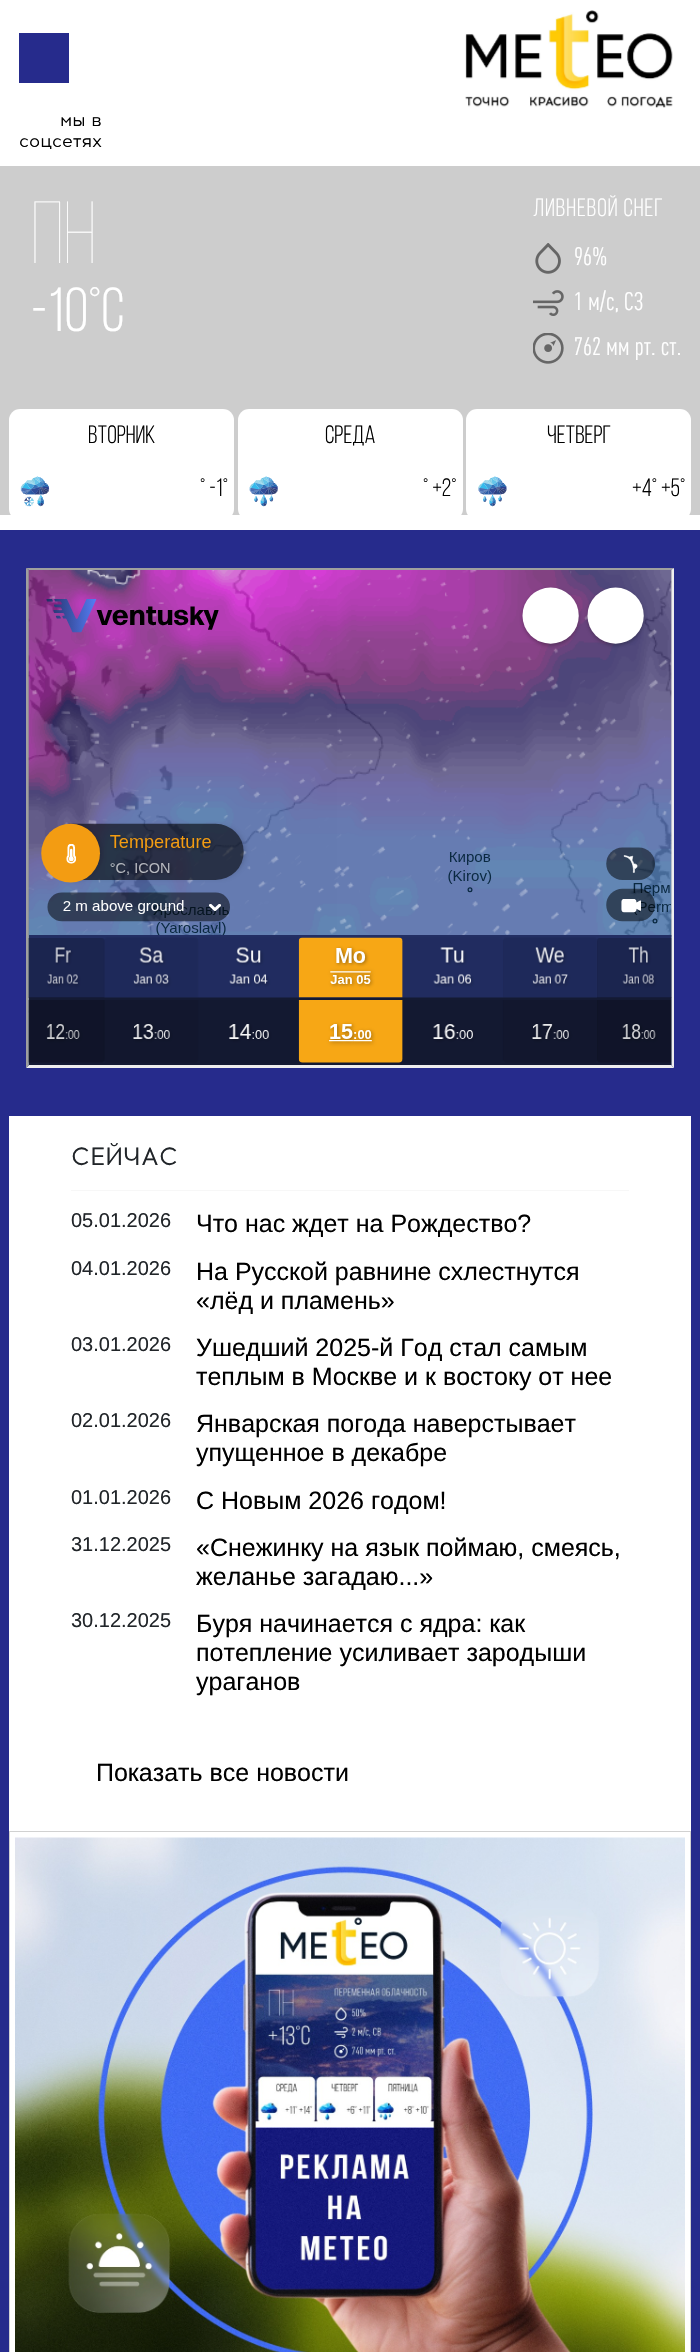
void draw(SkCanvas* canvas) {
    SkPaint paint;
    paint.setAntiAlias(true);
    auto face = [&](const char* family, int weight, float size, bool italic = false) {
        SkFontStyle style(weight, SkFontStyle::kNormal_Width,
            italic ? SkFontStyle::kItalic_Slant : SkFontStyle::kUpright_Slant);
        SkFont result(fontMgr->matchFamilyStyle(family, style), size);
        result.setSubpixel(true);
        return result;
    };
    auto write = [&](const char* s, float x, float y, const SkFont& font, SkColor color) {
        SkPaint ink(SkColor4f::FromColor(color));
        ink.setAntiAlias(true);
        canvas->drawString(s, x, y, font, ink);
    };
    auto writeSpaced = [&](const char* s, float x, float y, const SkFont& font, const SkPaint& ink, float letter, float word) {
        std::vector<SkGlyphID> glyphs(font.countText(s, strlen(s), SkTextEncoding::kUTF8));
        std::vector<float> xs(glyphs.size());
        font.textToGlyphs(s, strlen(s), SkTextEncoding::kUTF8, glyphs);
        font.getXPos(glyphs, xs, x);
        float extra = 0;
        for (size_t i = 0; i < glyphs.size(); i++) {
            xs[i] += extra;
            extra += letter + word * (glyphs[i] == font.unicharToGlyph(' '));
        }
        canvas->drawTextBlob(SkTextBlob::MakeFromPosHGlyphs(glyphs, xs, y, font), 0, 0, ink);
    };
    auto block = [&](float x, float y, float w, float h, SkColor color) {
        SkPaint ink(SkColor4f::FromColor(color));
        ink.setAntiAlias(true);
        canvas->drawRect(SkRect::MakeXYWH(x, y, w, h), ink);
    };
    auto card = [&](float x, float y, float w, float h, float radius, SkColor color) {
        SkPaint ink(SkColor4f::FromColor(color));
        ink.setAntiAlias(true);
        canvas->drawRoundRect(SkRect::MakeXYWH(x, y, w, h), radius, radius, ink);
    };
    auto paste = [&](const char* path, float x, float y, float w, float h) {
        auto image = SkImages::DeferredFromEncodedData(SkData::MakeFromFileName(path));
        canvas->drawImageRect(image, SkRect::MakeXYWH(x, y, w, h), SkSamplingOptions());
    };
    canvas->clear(SK_ColorWHITE);
    block(19, 33, 50, 50, SkColorSetRGB(38, 43, 140));
    paste("pic1.png", 465, 10, 208, 98);
    auto kFont1 = face("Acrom", 400, 17.5f);
    write("мы в", 60, 126, kFont1, SK_ColorBLACK);
    write("соцсетях", 19, 147, kFont1, SK_ColorBLACK);
    block(0, 166, 700, 349, SkColorSetRGB(205, 205, 205));
    auto kFont2 = face("Bebas Neue", 100, 88);
    write("Пн", 31, 263, kFont2, SK_ColorWHITE);
    auto kFont3 = face("Bebas Neue", 400, 62);
    write("-10°С", 31, 331, kFont3, SK_ColorWHITE);
    auto kFont4 = face("Bebas Neue", 400, 25);
    paint.setColor(SK_ColorWHITE);
    writeSpaced("ливневой снег", 533, 216, kFont4, paint, 1, 0);
    paste("pic2.png", 535, 243, 26, 31);
    auto kFont5 = face("DIN", 400, 25);
    write("96%", 574, 265, kFont5, SK_ColorWHITE);
    paste("pic3.png", 533, 290, 31, 26);
    write("1 м/с, СЗ", 574, 310, kFont5, SK_ColorWHITE);
    paste("pic4.png", 533, 333, 31, 31);
    write("762 мм рт. ст.", 574, 355, kFont5, SK_ColorWHITE);
    card(9, 409, 225, 111, 11, SK_ColorWHITE);
    write("Вторник", 88, 443, kFont4, SK_ColorBLACK);
    paste("pic5.png", 20, 476, 30, 31);
    write("° -1°", 200, 496, kFont4, SK_ColorBLACK);
    card(238, 409, 225, 111, 11, SK_ColorWHITE);
    write("Среда", 325, 443, kFont4, SK_ColorBLACK);
    paste("pic6.png", 249, 476, 29, 31);
    write("° +2°", 423, 496, kFont4, SK_ColorBLACK);
    card(466, 409, 225, 111, 11, SK_ColorWHITE);
    write("Четверг", 547, 443, kFont4, SK_ColorBLACK);
    paste("pic7.png", 478, 476, 29, 31);
    write("+4° +5°", 632, 496, kFont4, SK_ColorBLACK);
    block(0, 530, 700, 1822, SkColorSetRGB(38, 43, 140));
    paint.setColor(SkColorSetRGB(159, 159, 159));
    canvas->drawPath(SkPathBuilder().moveTo(26, 568).lineTo(674, 568).lineTo(671, 570).lineTo(29, 570).close().detach(), paint);
    paint.setColor(SkColorSetRGB(238, 238, 238));
    canvas->drawPath(SkPathBuilder().moveTo(674, 568).lineTo(674, 1068).lineTo(671, 1065).lineTo(671, 570).close().detach(), paint);
    canvas->drawPath(SkPathBuilder().moveTo(674, 1068).lineTo(26, 1068).lineTo(29, 1065).lineTo(671, 1065).close().detach(), paint);
    paint.setColor(SkColorSetRGB(159, 159, 159));
    canvas->drawPath(SkPathBuilder().moveTo(26, 1068).lineTo(26, 568).lineTo(29, 570).lineTo(29, 1065).close().detach(), paint);
    paste("pic8.png", 28, 570, 644, 495);
    block(9, 1116, 682, 715, SK_ColorWHITE);
    block(71, 1190, 558, 1, SkColorSetRGB(247, 247, 247));
    auto kFont6 = face("Acrom", 400, 25);
    write("СЕЙЧАС", 71, 1165, kFont6, SkColorSetRGB(33, 37, 41));
    auto kFont7 = face("Liberation Sans", 400, 20);
    write("05.01.2026", 71, 1227, kFont7, SkColorSetRGB(33, 37, 41));
    auto kFont8 = face("Liberation Sans", 400, 25);
    write("Что нас ждет на Рождество?", 196, 1232, kFont8, SK_ColorBLACK);
    write("04.01.2026", 71, 1275, kFont7, SkColorSetRGB(33, 37, 41));
    write("На Русской равнине схлестнутся", 196, 1280, kFont8, SK_ColorBLACK);
    write("«лёд и пламень»", 196, 1309, kFont8, SK_ColorBLACK);
    write("03.01.2026", 71, 1351, kFont7, SkColorSetRGB(33, 37, 41));
    write("Ушедший 2025-й Год стал самым", 196, 1356, kFont8, SK_ColorBLACK);
    write("теплым в Москве и к востоку от нее", 196, 1385, kFont8, SK_ColorBLACK);
    write("02.01.2026", 71, 1427, kFont7, SkColorSetRGB(33, 37, 41));
    write("Январская погода наверстывает", 196, 1432, kFont8, SK_ColorBLACK);
    write("упущенное в декабре", 196, 1461, kFont8, SK_ColorBLACK);
    write("01.01.2026", 71, 1504, kFont7, SkColorSetRGB(33, 37, 41));
    write("С Новым 2026 годом!", 196, 1509, kFont8, SK_ColorBLACK);
    write("31.12.2025", 71, 1551, kFont7, SkColorSetRGB(33, 37, 41));
    write("«Снежинку на язык поймаю, смеясь,", 196, 1556, kFont8, SK_ColorBLACK);
    write("желанье загадаю...»", 196, 1585, kFont8, SK_ColorBLACK);
    write("30.12.2025", 71, 1627, kFont7, SkColorSetRGB(33, 37, 41));
    write("Буря начинается с ядра: как", 196, 1632, kFont8, SK_ColorBLACK);
    write("потепление усиливает зародыши", 196, 1661, kFont8, SK_ColorBLACK);
    write("ураганов", 196, 1690, kFont8, SK_ColorBLACK);
    write("Показать все новости", 96, 1781, kFont8, SK_ColorBLACK);
    paint.setColor(SK_ColorWHITE);
    canvas->drawRect(SkRect::MakeXYWH(9.5f, 1831.5f, 681, 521), paint);
    paint.setStyle(SkPaint::kStroke_Style);
    paint.setStrokeWidth(1);
    paint.setColor(SkColorSetRGB(209, 209, 209));
    canvas->drawRect(SkRect::MakeXYWH(9.5f, 1831.5f, 681, 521), paint);
    paste("pic9.png", 15, 1837, 670, 515);
}
